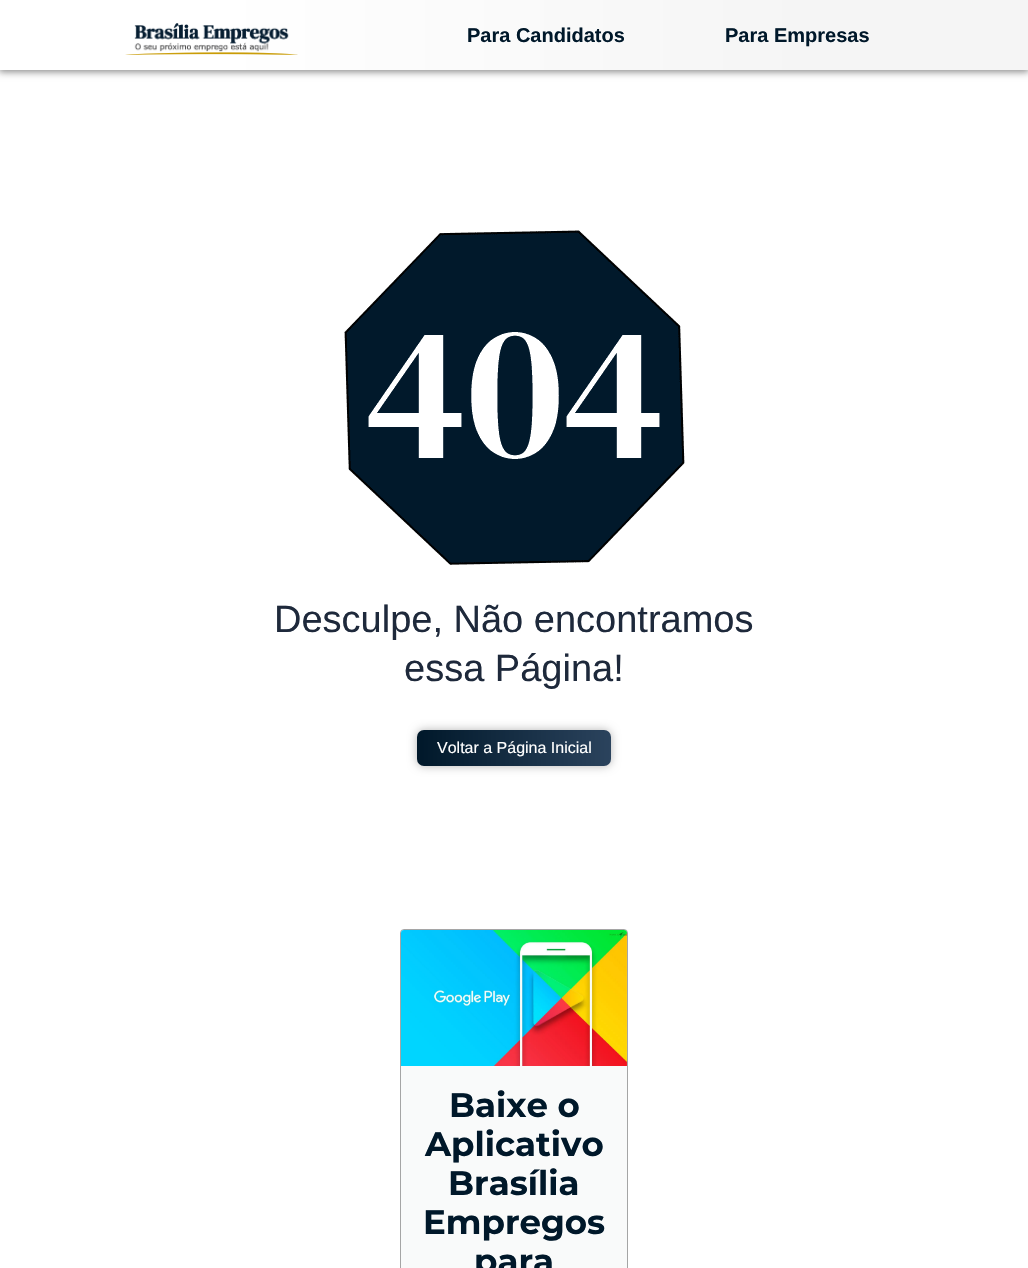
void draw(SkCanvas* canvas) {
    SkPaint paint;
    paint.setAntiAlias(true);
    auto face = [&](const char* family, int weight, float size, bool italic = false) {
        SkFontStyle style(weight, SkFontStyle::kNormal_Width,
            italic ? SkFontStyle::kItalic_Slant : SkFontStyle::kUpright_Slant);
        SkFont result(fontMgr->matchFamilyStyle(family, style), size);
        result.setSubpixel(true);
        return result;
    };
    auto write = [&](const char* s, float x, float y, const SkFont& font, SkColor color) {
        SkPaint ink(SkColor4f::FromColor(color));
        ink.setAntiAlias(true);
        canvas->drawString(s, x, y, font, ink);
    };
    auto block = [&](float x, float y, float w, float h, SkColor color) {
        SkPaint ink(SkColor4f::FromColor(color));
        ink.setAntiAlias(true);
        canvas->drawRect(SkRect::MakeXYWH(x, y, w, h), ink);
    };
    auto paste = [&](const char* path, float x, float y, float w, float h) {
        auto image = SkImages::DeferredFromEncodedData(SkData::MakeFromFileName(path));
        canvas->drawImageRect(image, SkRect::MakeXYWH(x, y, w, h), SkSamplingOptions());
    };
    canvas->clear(SK_ColorWHITE);
    paint.setColor(SkColorSetARGB(115, 0, 0, 0));
    paint.setMaskFilter(SkMaskFilter::MakeBlur(kNormal_SkBlurStyle, 3.5f));
    canvas->drawRect(SkRect::MakeXYWH(-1, 0, 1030, 72), paint);
    paint.setMaskFilter(nullptr);
    {
        const SkColor colors[] = {SK_ColorWHITE, SkColorSetRGB(245, 245, 245)};
        const float stops[] = {0.21f, 0.79f};
        const SkPoint ends[] = {{0, 35}, {1028, 35}};
        paint.setShader(SkGradientShader::MakeLinear(ends, colors, stops, 2, SkTileMode::kClamp));
        paint.setAlpha(255);
    }
    canvas->drawRect(SkRect::MakeXYWH(0, 0, 1028, 70), paint);
    paste("pic1.png", 125, 23, 173, 32);
    auto kFont1 = face("Liberation Sans", 700, 20);
    write("Para Candidatos", 467, 42, kFont1, SkColorSetRGB(0, 24, 42));
    write("Para Empresas", 725, 42, kFont1, SkColorSetRGB(0, 24, 42));
    paste("pic2.png", 344, 230, 341, 335);
    auto kFont2 = face("Liberation Sans", 400, 38);
    write("Desculpe, Não encontramos", 274, 632, kFont2, SkColorSetRGB(30, 41, 59));
    write("essa Página!", 404, 681, kFont2, SkColorSetRGB(30, 41, 59));
    paint.setShader(nullptr);
    paint.setColor(SkColorSetARGB(74, 0, 0, 0));
    paint.setMaskFilter(SkMaskFilter::MakeBlur(kNormal_SkBlurStyle, 5));
    canvas->drawRoundRect(SkRect::MakeXYWH(417, 730, 194, 36), 7, 7, paint);
    paint.setMaskFilter(nullptr);
    {
        const SkColor colors[] = {SkColorSetRGB(0, 24, 42), SkColorSetRGB(43, 67, 93)};
        const float stops[] = {0, 1};
        const SkPoint ends[] = {{417, 748}, {611, 748}};
        paint.setShader(SkGradientShader::MakeLinear(ends, colors, stops, 2, SkTileMode::kClamp));
        paint.setAlpha(255);
    }
    canvas->drawRoundRect(SkRect::MakeXYWH(417, 730, 194, 36), 7, 7, paint);
    auto kFont3 = face("Liberation Sans", 400, 16);
    write("Voltar a Página Inicial", 437, 753, kFont3, SK_ColorWHITE);
    paint.setStyle(SkPaint::kStroke_Style);
    paint.setStrokeWidth(1);
    paint.setShader(nullptr);
    paint.setColor(SkColorSetRGB(165, 165, 165));
    canvas->drawRoundRect(SkRect::MakeXYWH(400.5f, 929.5f, 227, 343), 3.5f, 3.5f, paint);
    paste("pic3.png", 401, 930, 226, 136);
    block(401, 1066, 226, 202, SkColorSetRGB(249, 250, 250));
    auto kFont4 = face("Montserrat", 700, 34);
    write("Baixe o", 449, 1117, kFont4, SkColorSetRGB(0, 24, 42));
    write("Aplicativo", 425, 1156, kFont4, SkColorSetRGB(0, 24, 42));
    write("Brasília", 448, 1195, kFont4, SkColorSetRGB(0, 24, 42));
    write("Empregos", 423, 1234, kFont4, SkColorSetRGB(0, 24, 42));
    write("para", 474, 1273, kFont4, SkColorSetRGB(0, 24, 42));
}
